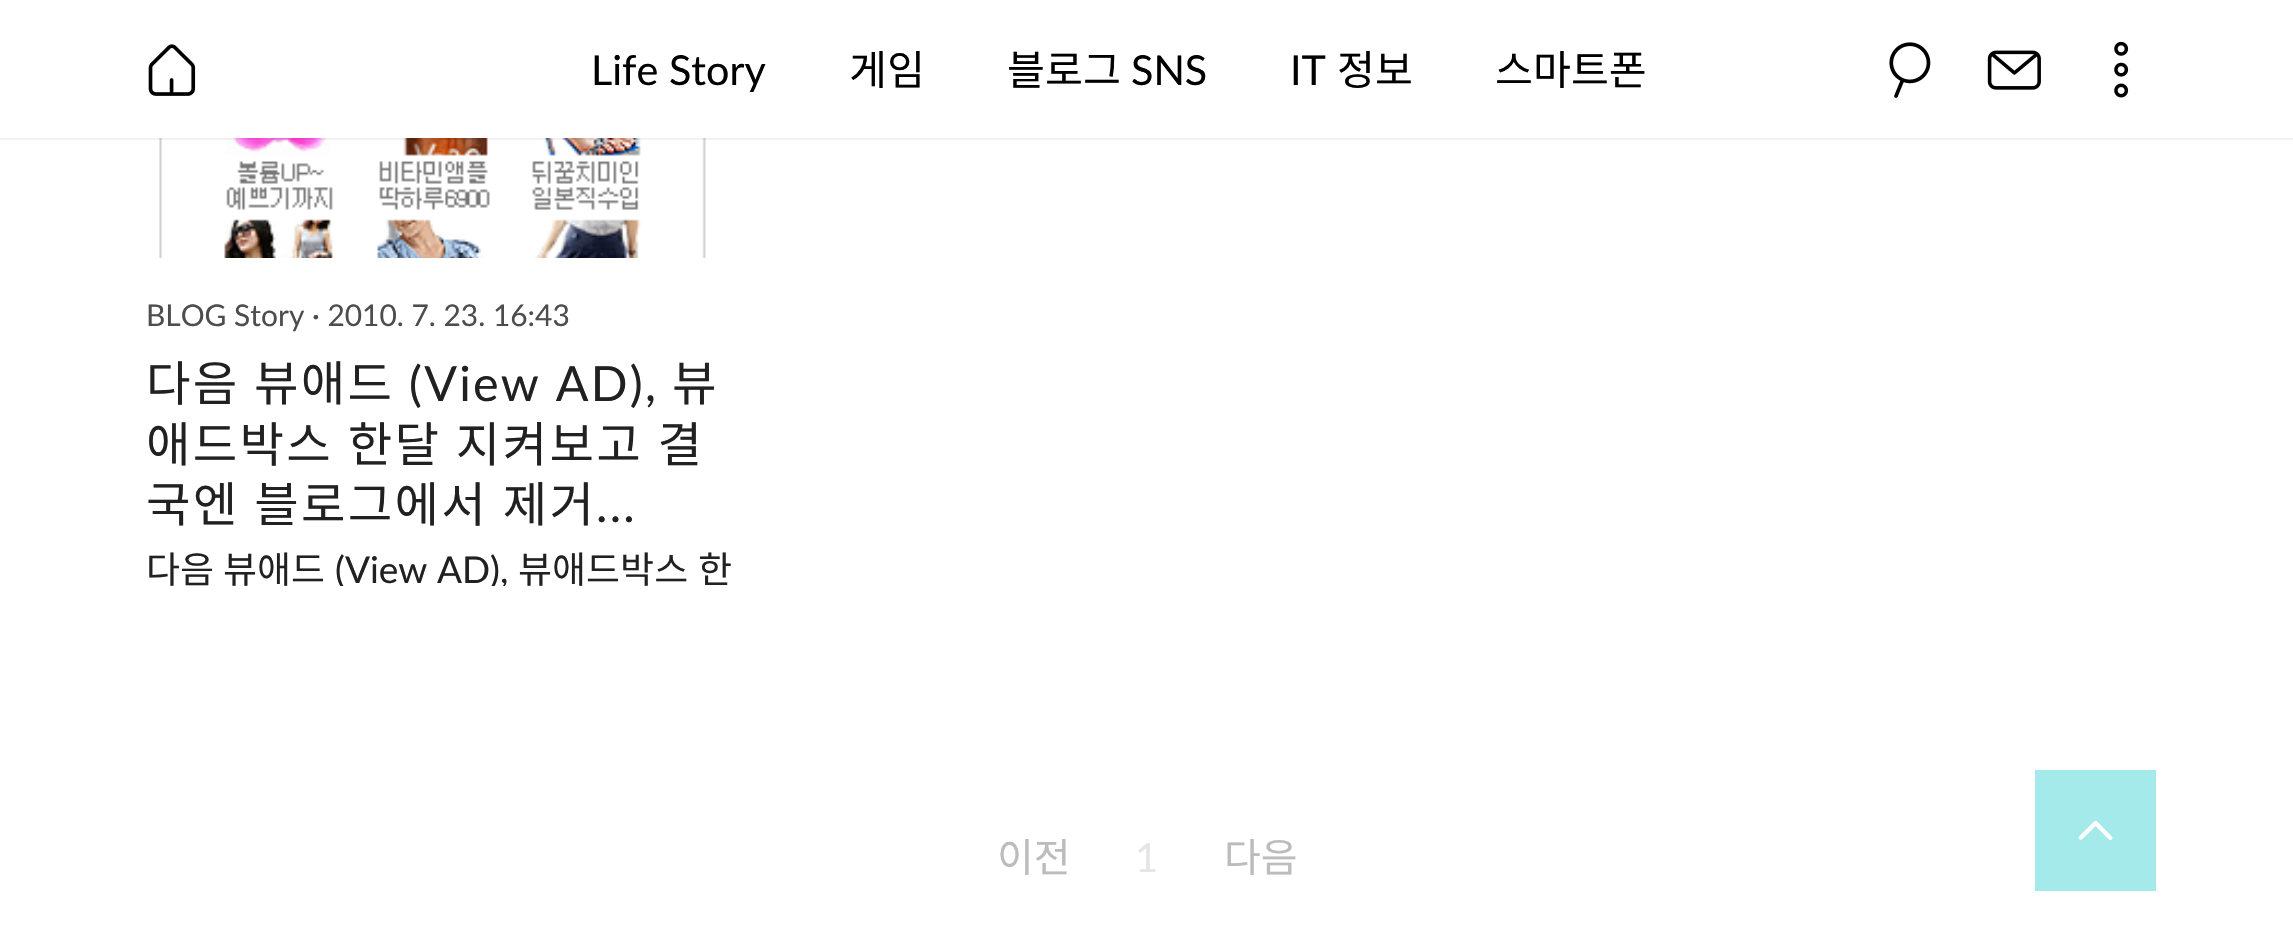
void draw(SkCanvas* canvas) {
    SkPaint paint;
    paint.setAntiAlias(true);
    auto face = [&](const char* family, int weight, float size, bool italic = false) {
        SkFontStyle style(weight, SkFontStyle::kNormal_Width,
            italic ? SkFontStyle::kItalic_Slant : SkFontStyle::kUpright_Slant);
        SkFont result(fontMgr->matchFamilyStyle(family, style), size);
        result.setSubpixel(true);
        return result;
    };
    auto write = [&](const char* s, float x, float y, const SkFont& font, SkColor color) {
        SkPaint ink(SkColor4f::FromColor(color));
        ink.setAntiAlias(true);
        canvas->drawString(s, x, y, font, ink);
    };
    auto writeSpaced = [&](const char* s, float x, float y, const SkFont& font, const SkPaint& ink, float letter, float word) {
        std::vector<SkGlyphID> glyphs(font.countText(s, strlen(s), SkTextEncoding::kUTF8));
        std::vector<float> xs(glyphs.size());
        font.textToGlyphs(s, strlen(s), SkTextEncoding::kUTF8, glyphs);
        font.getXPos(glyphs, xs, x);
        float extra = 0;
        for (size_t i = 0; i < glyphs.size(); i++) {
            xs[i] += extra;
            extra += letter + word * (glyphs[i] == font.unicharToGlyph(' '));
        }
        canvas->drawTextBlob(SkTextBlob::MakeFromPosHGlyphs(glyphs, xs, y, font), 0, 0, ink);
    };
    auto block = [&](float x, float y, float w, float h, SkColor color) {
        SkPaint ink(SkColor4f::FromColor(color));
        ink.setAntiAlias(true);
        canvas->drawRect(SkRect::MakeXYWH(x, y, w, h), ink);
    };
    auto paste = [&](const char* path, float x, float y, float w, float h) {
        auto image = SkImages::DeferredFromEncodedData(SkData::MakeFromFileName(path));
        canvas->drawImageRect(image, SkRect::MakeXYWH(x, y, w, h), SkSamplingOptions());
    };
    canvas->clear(SK_ColorWHITE);
    paste("pic5.png", 159, 138, 547, 120);
    paint.setColor(SkColorSetARGB(13, 0, 0, 0));
    canvas->drawPath(SkPathBuilder().moveTo(0, 138).lineTo(0, 140).lineTo(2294, 140).lineTo(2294, 3).lineTo(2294, 138).close().detach(), paint);
    paste("pic1.png", 148, 44, 48, 52);
    auto kFont1 = face("Lato", 400, 41.25f);
    write("Life Story", 591, 85, kFont1, SK_ColorBLACK);
    auto kFont2 = face("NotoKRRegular", 400, 41.25f);
    write("게임", 849, 85, kFont2, SK_ColorBLACK);
    write("블로그", 1007, 85, kFont2, SK_ColorBLACK);
    write("SNS", 1131, 85, kFont1, SK_ColorBLACK);
    write("IT", 1290, 85, kFont1, SK_ColorBLACK);
    write("정보", 1337, 85, kFont2, SK_ColorBLACK);
    write("스마트폰", 1495, 85, kFont2, SK_ColorBLACK);
    paste("pic2.png", 1889, 42, 42, 56);
    paste("pic3.png", 1987, 50, 54, 40);
    paste("pic4.png", 2114, 41, 15, 57);
    auto kFont3 = face("Lato", 400, 29.9f);
    write("BLOG Story · 2010. 7. 23. 16:43", 146, 326, kFont3, SkColorSetRGB(77, 77, 77));
    auto kFont4 = face("NotoKRRegular", 400, 48.4f);
    paint.setColor(SkColorSetRGB(33, 33, 33));
    writeSpaced("다음", 146, 401, kFont4, paint, 2.25f, 0);
    writeSpaced("뷰애드", 254, 401, kFont4, paint, 2.25f, 0);
    auto kFont5 = face("Lato", 400, 48.4f);
    writeSpaced("(View AD),", 409, 401, kFont5, paint, 2.25f, 0);
    writeSpaced("뷰", 672, 401, kFont4, paint, 2.25f, 0);
    writeSpaced("애드박스 한달 지켜보고 결", 146, 462, kFont4, paint, 2.25f, 1.5f);
    writeSpaced("국엔 블로그에서 제거", 146, 522, kFont4, paint, 2.25f, 1.5f);
    writeSpaced("...", 596, 522, kFont5, paint, 2.25f, 0);
    auto kFont6 = face("NotoKRRegular", 400, 37);
    write("다음", 146, 583, kFont6, SkColorSetRGB(33, 33, 33));
    write("뷰애드", 223, 583, kFont6, SkColorSetRGB(33, 33, 33));
    canvas->save();
    canvas->clipRect(SkRect::MakeXYWH(146, 542, 588, 44));
    auto kFont7 = face("Lato", 400, 37);
    write("(View AD),", 335, 583, kFont7, SkColorSetRGB(33, 33, 33));
    canvas->restore();
    write("뷰애드박스", 518, 583, kFont6, SkColorSetRGB(33, 33, 33));
    write("한", 698, 583, kFont6, SkColorSetRGB(33, 33, 33));
    auto kFont8 = face("NotoKRRegular", 400, 40);
    write("이전", 997, 872, kFont8, SkColorSetRGB(188, 188, 188));
    auto kFont9 = face("Lato", 400, 40);
    write("1", 1135, 872, kFont9, SkColorSetRGB(229, 229, 229));
    write("다음", 1224, 872, kFont8, SkColorSetRGB(188, 188, 188));
    block(2035, 770, 121, 121, SkColorSetRGB(164, 234, 235));
    paste("pic6.png", 2078, 820, 35, 21);
}
